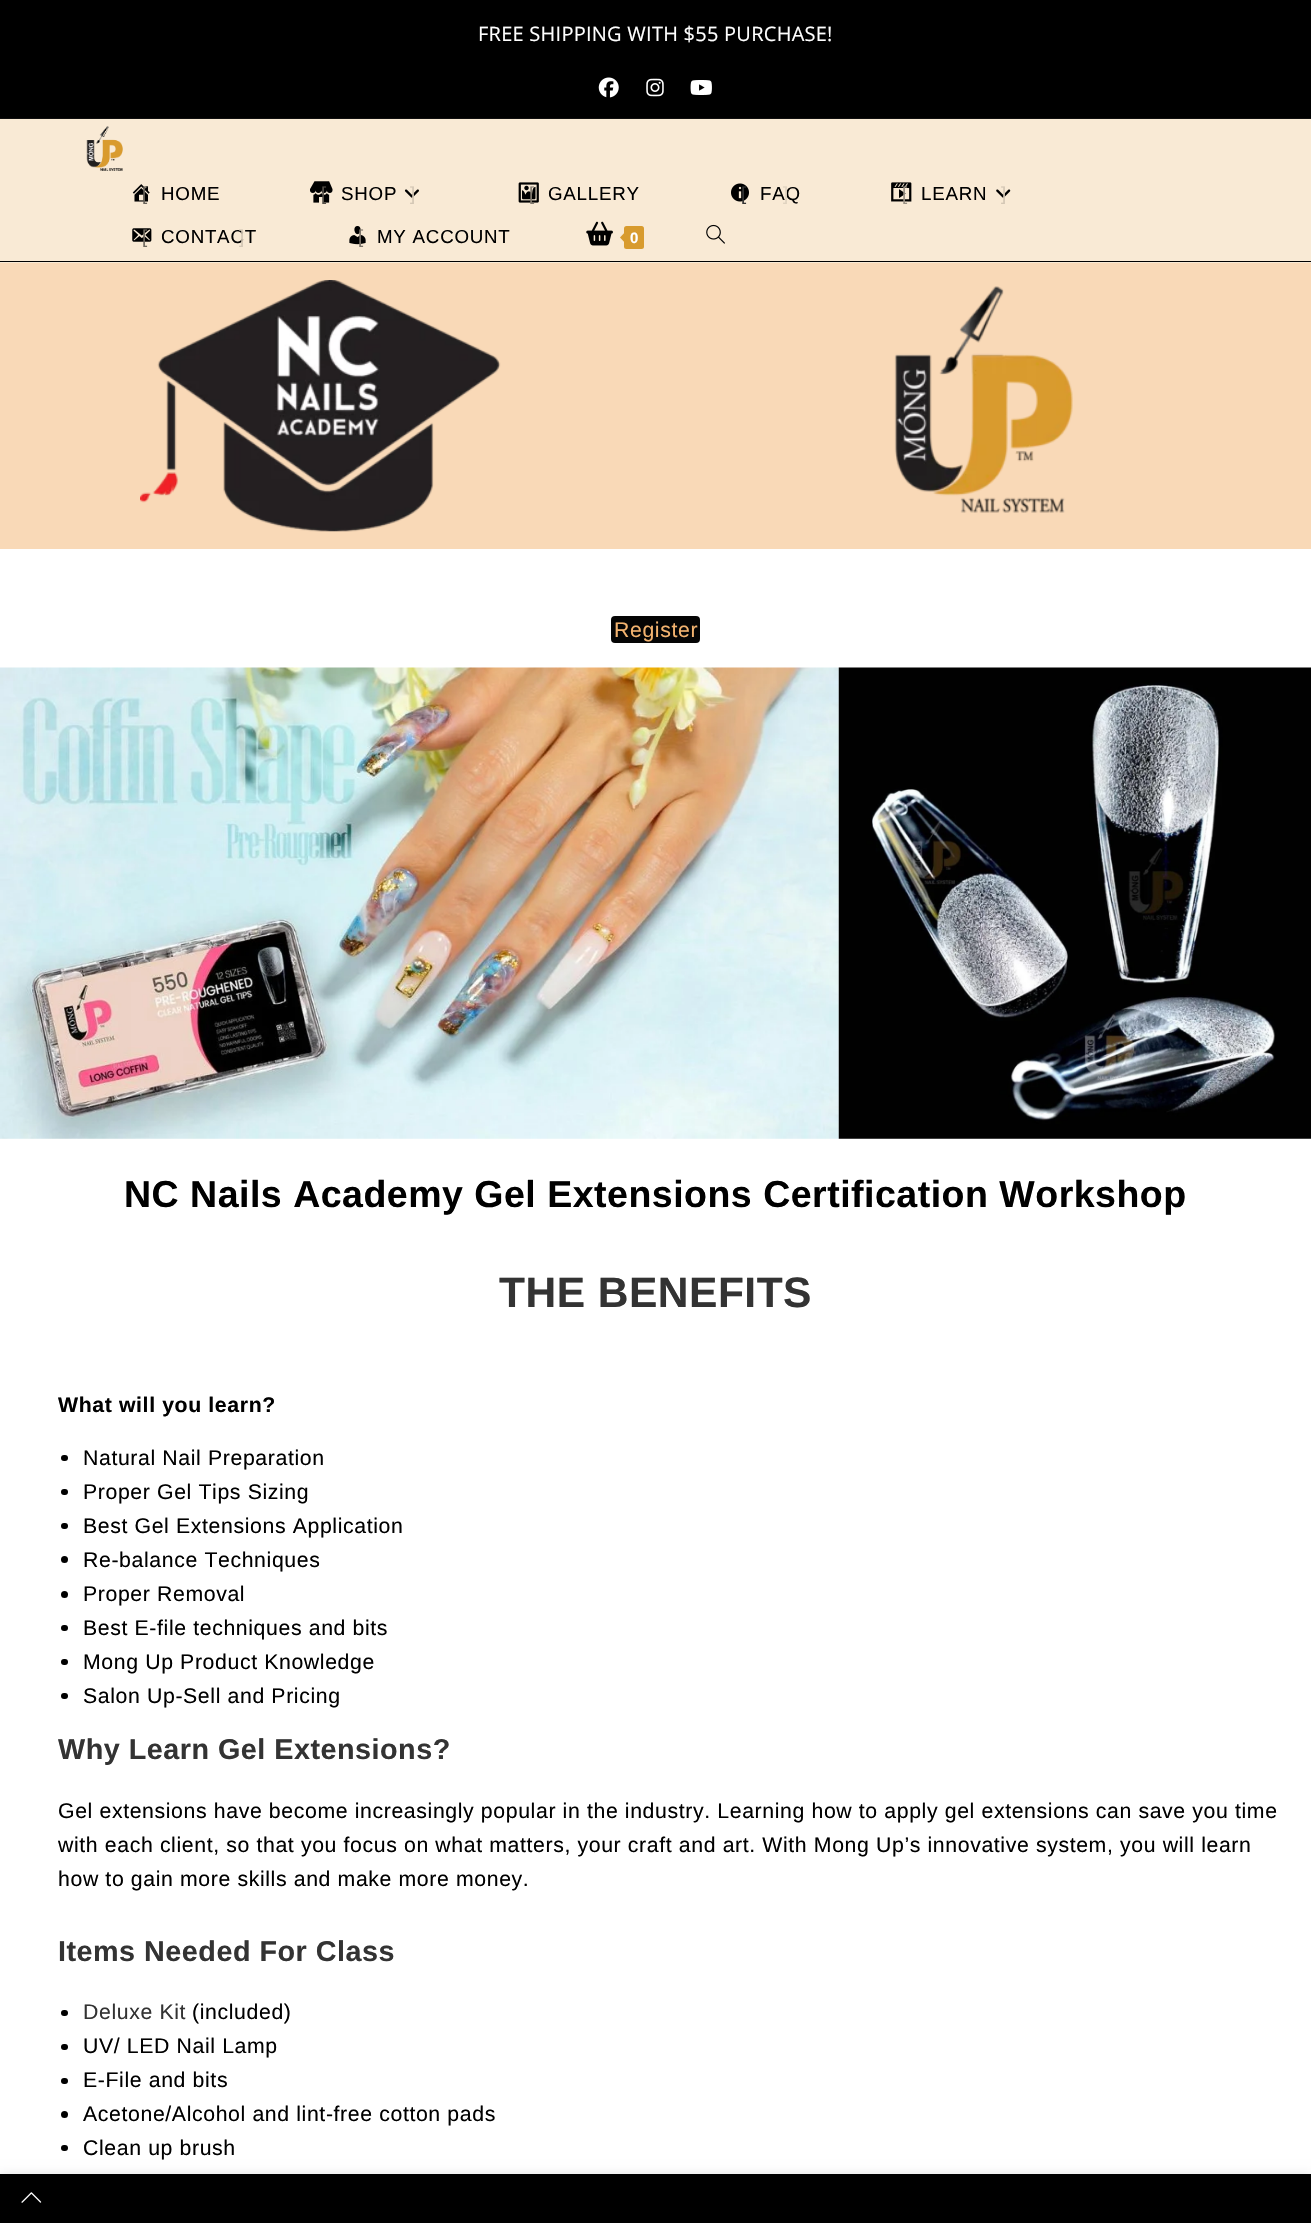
void draw(SkCanvas* canvas) {
    SkPaint paint;
    paint.setAntiAlias(true);
    auto face = [&](const char* family, int weight, float size, bool italic = false) {
        SkFontStyle style(weight, SkFontStyle::kNormal_Width,
            italic ? SkFontStyle::kItalic_Slant : SkFontStyle::kUpright_Slant);
        SkFont result(fontMgr->matchFamilyStyle(family, style), size);
        result.setSubpixel(true);
        return result;
    };
    auto write = [&](const char* s, float x, float y, const SkFont& font, SkColor color) {
        SkPaint ink(SkColor4f::FromColor(color));
        ink.setAntiAlias(true);
        canvas->drawString(s, x, y, font, ink);
    };
    auto writeSpaced = [&](const char* s, float x, float y, const SkFont& font, const SkPaint& ink, float letter, float word) {
        std::vector<SkGlyphID> glyphs(font.countText(s, strlen(s), SkTextEncoding::kUTF8));
        std::vector<float> xs(glyphs.size());
        font.textToGlyphs(s, strlen(s), SkTextEncoding::kUTF8, glyphs);
        font.getXPos(glyphs, xs, x);
        float extra = 0;
        for (size_t i = 0; i < glyphs.size(); i++) {
            xs[i] += extra;
            extra += letter + word * (glyphs[i] == font.unicharToGlyph(' '));
        }
        canvas->drawTextBlob(SkTextBlob::MakeFromPosHGlyphs(glyphs, xs, y, font), 0, 0, ink);
    };
    auto block = [&](float x, float y, float w, float h, SkColor color) {
        SkPaint ink(SkColor4f::FromColor(color));
        ink.setAntiAlias(true);
        canvas->drawRect(SkRect::MakeXYWH(x, y, w, h), ink);
    };
    auto card = [&](float x, float y, float w, float h, float radius, SkColor color) {
        SkPaint ink(SkColor4f::FromColor(color));
        ink.setAntiAlias(true);
        canvas->drawRoundRect(SkRect::MakeXYWH(x, y, w, h), radius, radius, ink);
    };
    auto paste = [&](const char* path, float x, float y, float w, float h) {
        auto image = SkImages::DeferredFromEncodedData(SkData::MakeFromFileName(path));
        canvas->drawImageRect(image, SkRect::MakeXYWH(x, y, w, h), SkSamplingOptions());
    };
    canvas->clear(SK_ColorWHITE);
    block(0, 0, 1311, 118, SK_ColorBLACK);
    block(0, 118, 1311, 1, SkColorSetRGB(15, 15, 15));
    auto kFont1 = face("Open Sans", 400, 20);
    paint.setColor(SK_ColorWHITE);
    writeSpaced("FREE SHIPPING WITH $55 PURCHASE!", 478, 41, kFont1, paint, 0.25f, 0);
    paste("pic1.png", 598, 77, 21, 21);
    paste("pic2.png", 646, 78, 18, 19);
    paste("pic3.png", 690, 80, 22, 15);
    block(0, 119, 1311, 144, SkColorSetRGB(249, 234, 213));
    block(0, 261, 1311, 1, SK_ColorBLACK);
    paste("pic4.png", 86, 126, 37, 45);
    paste("pic5.png", 132, 184, 18, 18);
    auto kFont2 = face("Liberation Sans", 400, 18.75f);
    paint.setColor(SkColorSetRGB(104, 98, 89));
    writeSpaced("[", 142, 200, kFont2, paint, 0.75f, 0);
    paint.setColor(SK_ColorBLACK);
    writeSpaced("HOME", 161, 200, kFont2, paint, 0.75f, 0);
    paste("pic6.png", 310, 181, 23, 22);
    paint.setColor(SkColorSetRGB(83, 78, 71));
    writeSpaced("[", 321, 200, kFont2, paint, 0.75f, 0);
    paint.setColor(SK_ColorBLACK);
    writeSpaced("SHOP", 341, 200, kFont2, paint, 0.75f, 0);
    paste("pic7.png", 404, 189, 15, 9);
    paint.setColor(SkColorSetRGB(212, 199, 181));
    writeSpaced("]", 410, 200, kFont2, paint, 0.75f, 0);
    paste("pic8.png", 518, 182, 21, 21);
    paint.setColor(SkColorSetRGB(131, 123, 112));
    writeSpaced("[", 529, 200, kFont2, paint, 0.75f, 0);
    paint.setColor(SK_ColorBLACK);
    writeSpaced("GALLERY", 548, 200, kFont2, paint, 0.75f, 0);
    paste("pic9.png", 731, 183, 18, 19);
    paint.setColor(SkColorSetRGB(51, 51, 51));
    writeSpaced("[", 741, 200, kFont2, paint, 0.75f, 0);
    paint.setColor(SK_ColorBLACK);
    writeSpaced("FAQ", 760, 200, kFont2, paint, 0.75f, 0);
    paint.setColor(SkColorSetRGB(224, 211, 192));
    writeSpaced("]", 783, 200, kFont2, paint, 0.75f, 0);
    paste("pic10.png", 891, 182, 21, 20);
    paint.setColor(SkColorSetRGB(152, 143, 130));
    writeSpaced("[", 902, 200, kFont2, paint, 0.75f, 0);
    paint.setColor(SK_ColorBLACK);
    writeSpaced("LEARN", 921, 200, kFont2, paint, 0.75f, 0);
    paste("pic11.png", 996, 189, 15, 9);
    paint.setColor(SkColorSetRGB(212, 199, 181));
    writeSpaced("]", 1001, 200, kFont2, paint, 0.75f, 0);
    paste("pic12.png", 132, 228, 20, 14);
    paint.setColor(SkColorSetRGB(112, 105, 95));
    writeSpaced("[", 142, 243, kFont2, paint, 0.75f, 0);
    paint.setColor(SK_ColorBLACK);
    writeSpaced("CONTACT", 161, 243, kFont2, paint, 0.75f, 0);
    paint.setColor(SkColorSetRGB(212, 199, 181));
    writeSpaced("]", 239, 243, kFont2, paint, 0.75f, 0);
    paste("pic13.png", 349, 226, 17, 19);
    paint.setColor(SkColorSetRGB(123, 115, 105));
    writeSpaced("[", 358, 243, kFont2, paint, 0.75f, 0);
    paint.setColor(SK_ColorBLACK);
    writeSpaced("MY ACCOUNT", 377, 243, kFont2, paint, 0.75f, 0);
    paste("pic14.png", 586, 221, 27, 25);
    card(624, 226, 20, 23, 2.5f, SkColorSetRGB(216, 155, 46));
    paint.setColor(SkColorSetRGB(216, 155, 46));
    canvas->drawPath(SkPathBuilder().moveTo(626, 231).lineTo(626, 244).lineTo(620, 237.5f).close().detach(), paint);
    auto kFont3 = face("Liberation Sans", 700, 15);
    write("0", 630, 243, kFont3, SK_ColorWHITE);
    paste("pic15.png", 706, 224, 19, 20);
    block(0, 263, 1311, 286, SkColorSetRGB(249, 217, 183));
    paste("pic16.png", 140, 280, 361, 252);
    paste("pic17.png", 894, 286, 179, 227);
    card(611, 616, 89, 27, 4, SkColorSetRGB(5, 5, 5));
    auto kFont4 = face("Liberation Sans", 400, 21.25f);
    paint.setColor(SkColorSetRGB(243, 179, 111));
    writeSpaced("Register", 614, 637, kFont4, paint, 0.62f, 0);
    paste("pic18.png", 0, 667, 839, 472);
    paste("pic19.png", 838, 667, 473, 472);
    auto kFont5 = face("Liberation Sans", 700, 37.5f);
    paint.setColor(SK_ColorBLACK);
    writeSpaced("NC Nails Academy Gel Extensions Certification Workshop", 124, 1207, kFont5, paint, 0.5f, 0);
    auto kFont6 = face("Liberation Sans", 700, 42.5f);
    paint.setColor(SkColorSetRGB(51, 51, 51));
    writeSpaced("THE BENEFITS", 499, 1307, kFont6, paint, 0.5f, 0);
    auto kFont7 = face("Liberation Sans", 700, 21.25f);
    paint.setColor(SK_ColorBLACK);
    writeSpaced("What will you learn?", 58, 1412, kFont7, paint, 0.62f, 0);
    card(61, 1455, 7, 6, 3, SK_ColorBLACK);
    writeSpaced("Natural Nail Preparation", 83, 1465, kFont4, paint, 0.62f, 0);
    card(61, 1489, 7, 6, 3, SK_ColorBLACK);
    writeSpaced("Proper Gel Tips Sizing", 83, 1499, kFont4, paint, 0.62f, 0);
    card(61, 1523, 7, 6, 3, SK_ColorBLACK);
    writeSpaced("Best Gel Extensions Application", 83, 1533, kFont4, paint, 0.62f, 0);
    canvas->drawCircle(64.5f, 1559.5f, 3.5f, paint);
    writeSpaced("Re-balance Techniques", 83, 1567, kFont4, paint, 0.62f, 0);
    canvas->drawCircle(64.5f, 1594.5f, 3.5f, paint);
    writeSpaced("Proper Removal", 83, 1601, kFont4, paint, 0.62f, 0);
    card(61, 1625, 7, 6, 3, SK_ColorBLACK);
    writeSpaced("Best E-file techniques and bits", 83, 1635, kFont4, paint, 0.62f, 0);
    card(61, 1659, 7, 6, 3, SK_ColorBLACK);
    writeSpaced("Mong Up Product Knowledge", 83, 1669, kFont4, paint, 0.62f, 0);
    card(61, 1693, 7, 6, 3, SK_ColorBLACK);
    writeSpaced("Salon Up-Sell and Pricing", 83, 1703, kFont4, paint, 0.62f, 0);
    auto kFont8 = face("Liberation Sans", 700, 28.75f);
    paint.setColor(SkColorSetRGB(51, 51, 51));
    writeSpaced("Why Learn Gel Extensions?", 58, 1759, kFont8, paint, 0.5f, 0);
    paint.setColor(SK_ColorBLACK);
    writeSpaced("Gel extensions have become increasingly popular in the industry. Learning how to apply gel extensions can save you time", 58, 1818, kFont4, paint, 0.62f, 0);
    writeSpaced("with each client, so that you focus on what matters, your craft and art. With Mong Up’s innovative system, you will learn", 58, 1852, kFont4, paint, 0.62f, 0);
    writeSpaced("how to gain more skills and make more money.", 58, 1886, kFont4, paint, 0.62f, 0);
    paint.setColor(SkColorSetRGB(51, 51, 51));
    writeSpaced("Items Needed For Class", 58, 1961, kFont8, paint, 0.5f, 0);
    card(61, 2010, 7, 6, 3, SK_ColorBLACK);
    writeSpaced("Deluxe Kit", 83, 2019, kFont4, paint, 0.62f, 0);
    paint.setColor(SK_ColorBLACK);
    writeSpaced("(included)", 192, 2019, kFont4, paint, 0.62f, 0);
    card(61, 2044, 7, 6, 3, SK_ColorBLACK);
    writeSpaced("UV/ LED Nail Lamp", 83, 2053, kFont4, paint, 0.62f, 0);
    card(61, 2078, 7, 6, 3, SK_ColorBLACK);
    writeSpaced("E-File and bits", 83, 2087, kFont4, paint, 0.62f, 0);
    canvas->drawCircle(64.5f, 2114.5f, 3.5f, paint);
    writeSpaced("Acetone/Alcohol and lint-free cotton pads", 83, 2121, kFont4, paint, 0.62f, 0);
    card(61, 2145, 7, 6, 3, SK_ColorBLACK);
    writeSpaced("Clean up brush", 83, 2155, kFont4, paint, 0.62f, 0);
    paint.setColor(SkColorSetARGB(26, 0, 0, 0));
    paint.setMaskFilter(SkMaskFilter::MakeBlur(kNormal_SkBlurStyle, 5));
    canvas->drawRect(SkRect::MakeXYWH(0, 2174, 1311, 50), paint);
    paint.setMaskFilter(nullptr);
    block(0, 2174, 1311, 49, SK_ColorBLACK);
    paste("pic20.png", 21, 2192, 21, 11);
}
